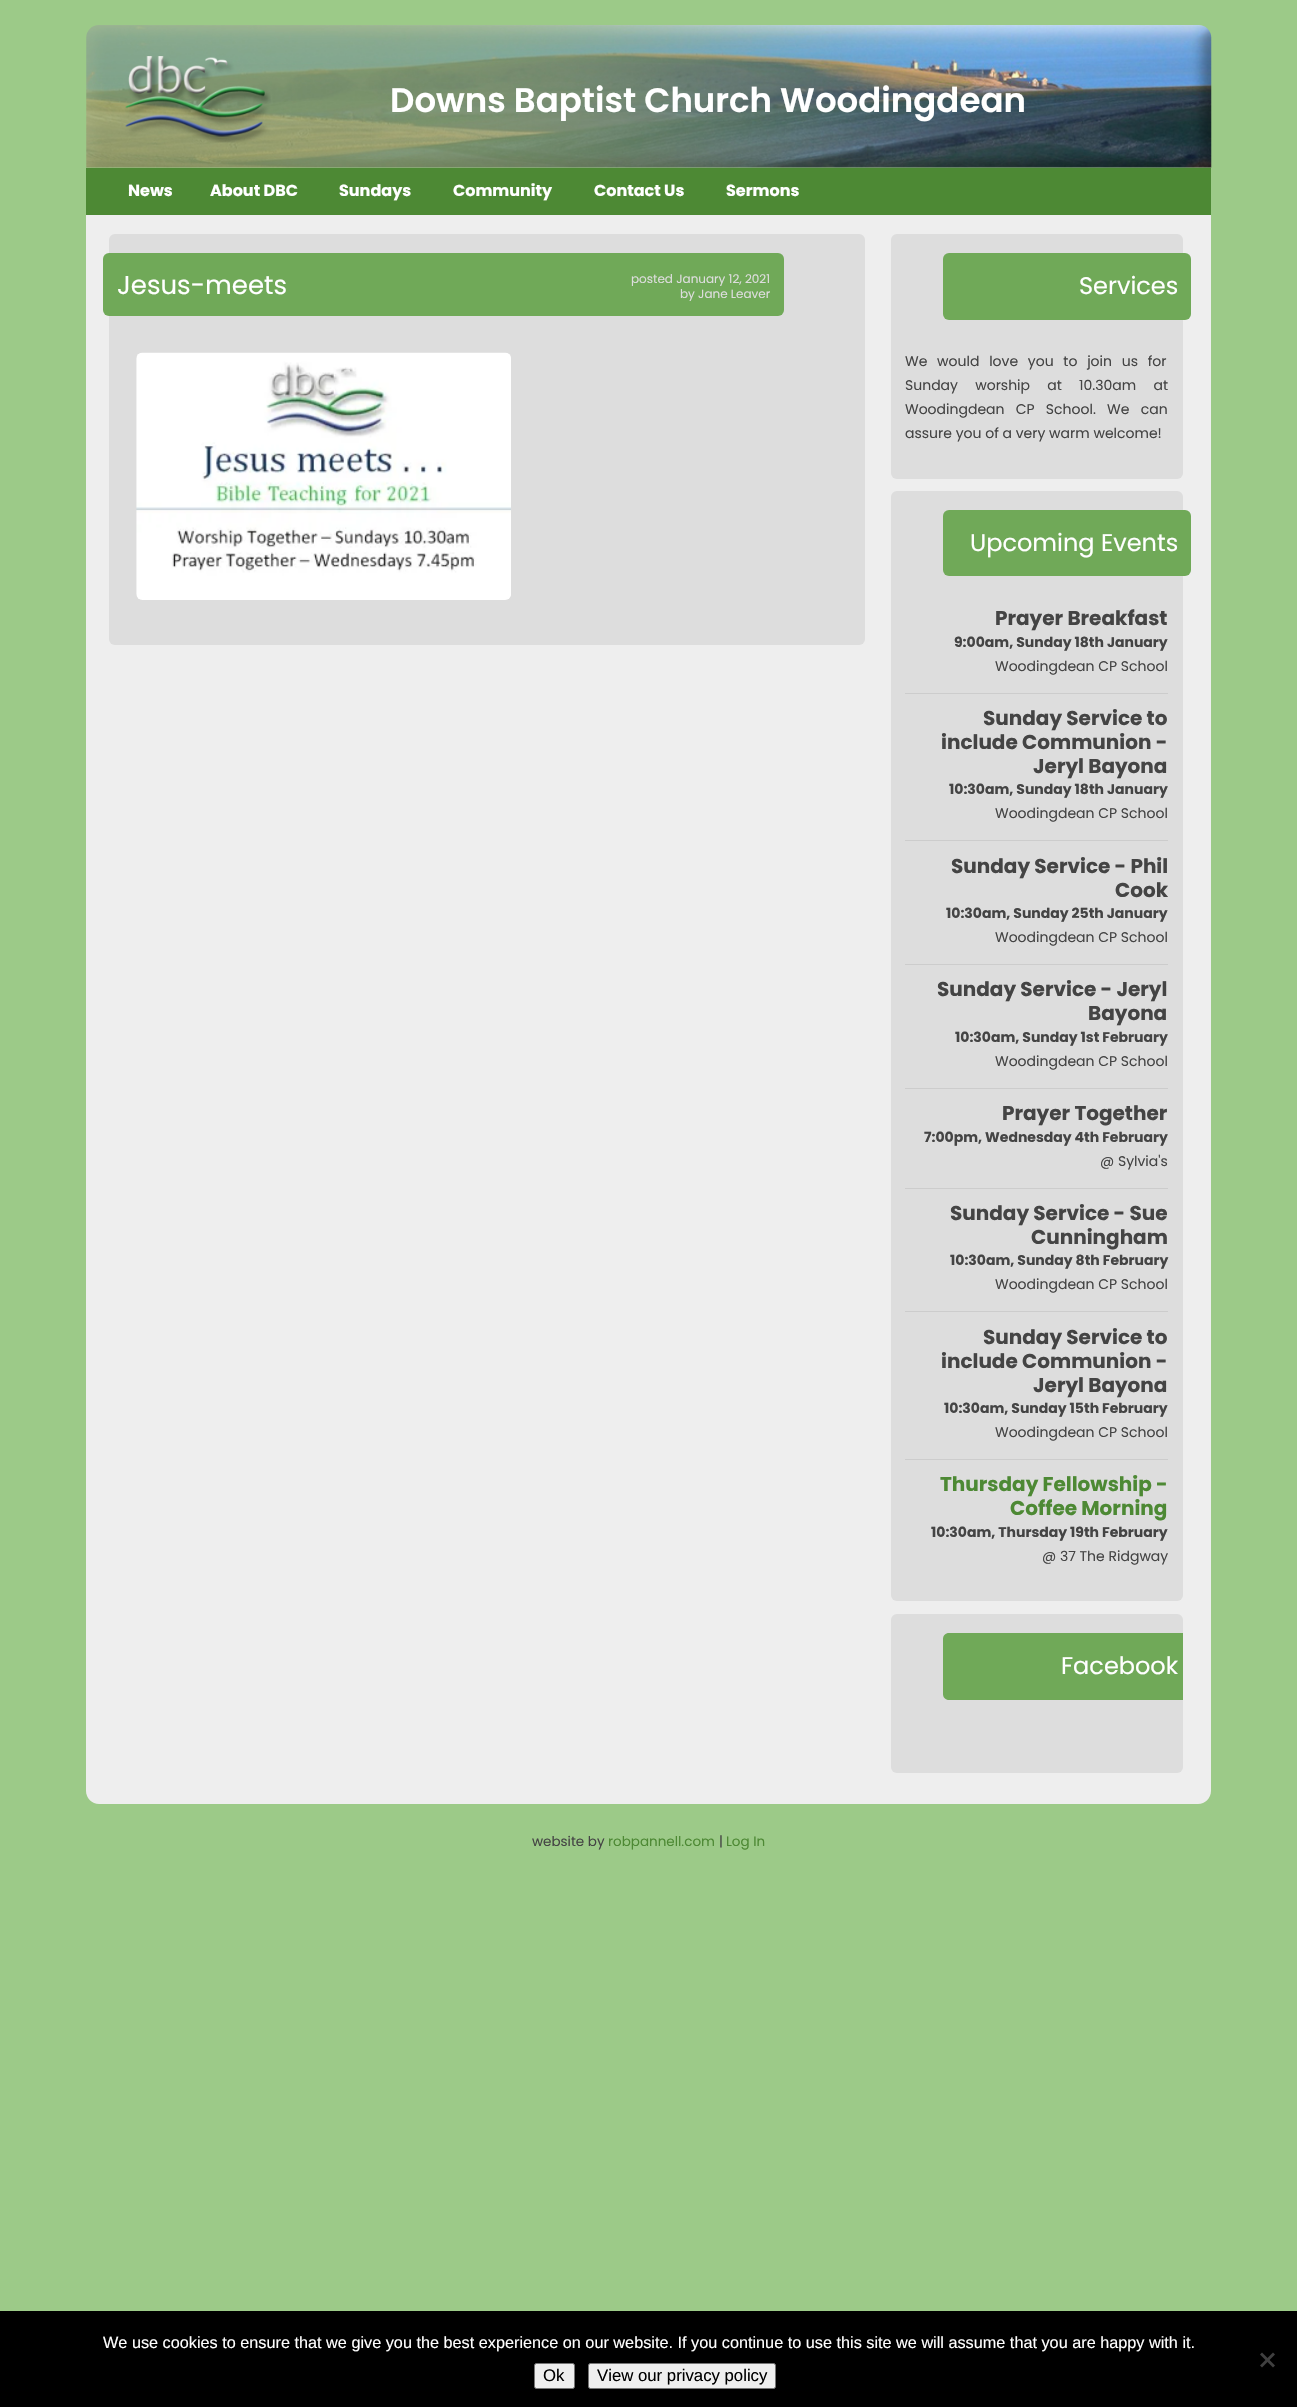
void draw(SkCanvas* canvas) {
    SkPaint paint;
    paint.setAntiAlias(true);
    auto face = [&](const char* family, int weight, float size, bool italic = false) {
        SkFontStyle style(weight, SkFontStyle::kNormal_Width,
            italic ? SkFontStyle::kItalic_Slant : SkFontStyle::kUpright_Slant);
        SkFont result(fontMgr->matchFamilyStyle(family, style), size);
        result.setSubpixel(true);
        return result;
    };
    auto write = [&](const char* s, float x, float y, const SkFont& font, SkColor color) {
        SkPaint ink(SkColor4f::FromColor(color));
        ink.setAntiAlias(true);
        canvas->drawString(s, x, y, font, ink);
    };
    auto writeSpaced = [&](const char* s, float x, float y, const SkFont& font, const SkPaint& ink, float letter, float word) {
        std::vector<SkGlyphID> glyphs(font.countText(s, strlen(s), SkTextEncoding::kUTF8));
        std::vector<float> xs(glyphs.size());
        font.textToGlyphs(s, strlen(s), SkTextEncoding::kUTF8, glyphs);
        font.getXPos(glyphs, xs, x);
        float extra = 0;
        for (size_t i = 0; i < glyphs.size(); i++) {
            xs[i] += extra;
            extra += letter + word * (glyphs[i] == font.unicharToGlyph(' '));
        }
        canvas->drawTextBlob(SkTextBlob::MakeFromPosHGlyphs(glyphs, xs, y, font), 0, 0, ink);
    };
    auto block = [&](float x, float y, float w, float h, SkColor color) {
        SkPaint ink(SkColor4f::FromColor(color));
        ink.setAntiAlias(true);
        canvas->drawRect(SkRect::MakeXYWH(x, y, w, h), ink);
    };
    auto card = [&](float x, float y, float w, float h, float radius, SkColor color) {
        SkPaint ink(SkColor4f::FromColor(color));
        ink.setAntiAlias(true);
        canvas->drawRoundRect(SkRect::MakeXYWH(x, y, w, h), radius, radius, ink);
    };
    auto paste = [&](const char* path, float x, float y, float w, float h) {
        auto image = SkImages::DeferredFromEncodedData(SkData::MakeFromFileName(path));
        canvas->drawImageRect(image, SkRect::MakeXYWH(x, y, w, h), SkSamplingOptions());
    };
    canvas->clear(SkColorSetRGB(156, 202, 136));
    paste("pic1.png", 86, 25, 1126, 143);
    paste("pic2.png", 125, 56, 146, 87);
    auto kFont1 = face("Poppins", 600, 34);
    write("Downs Baptist Church Woodingdean", 390, 112, kFont1, SK_ColorWHITE);
    block(86, 168, 1125, 47, SkColorSetRGB(77, 137, 52));
    auto kFont2 = face("Poppins", 700, 16);
    write("News", 128, 196, kFont2, SK_ColorWHITE);
    write("About DBC", 210, 196, kFont2, SK_ColorWHITE);
    write("Sundays", 339, 196, kFont2, SK_ColorWHITE);
    write("Community", 453, 196, kFont2, SK_ColorWHITE);
    write("Contact Us", 594, 196, kFont2, SK_ColorWHITE);
    write("Sermons", 726, 196, kFont2, SK_ColorWHITE);
    paint.setColor(SkColorSetRGB(238, 238, 238));
    canvas->drawPath(SkPathBuilder().moveTo(86, 215).lineTo(1211, 215).lineTo(1211, 1791).cubicTo(1211, 1798, 1205, 1804, 1198, 1804).lineTo(99, 1804).cubicTo(92, 1804, 86, 1798, 86, 1791).close().detach(), paint);
    card(109, 234, 756, 411, 6, SkColorSetRGB(221, 221, 221));
    card(103, 253, 681, 63, 6, SkColorSetRGB(112, 169, 88));
    auto kFont3 = face("Poppins", 400, 26);
    write("Jesus-meets", 117, 294, kFont3, SK_ColorWHITE);
    auto kFont4 = face("Poppins", 400, 12);
    write("posted January 12, 2021", 631, 283, kFont4, SkColorSetRGB(221, 221, 221));
    write("by Jane Leaver", 680, 298, kFont4, SkColorSetRGB(221, 221, 221));
    paste("pic3.png", 136, 352, 375, 248);
    card(891, 234, 292, 245, 6, SkColorSetRGB(221, 221, 221));
    card(943, 253, 248, 67, 6, SkColorSetRGB(112, 169, 88));
    auto kFont5 = face("Poppins", 400, 24);
    write("Services", 1079, 294, kFont5, SK_ColorWHITE);
    auto kFont6 = face("Poppins", 400, 14);
    paint.setColor(SkColorSetRGB(68, 68, 68));
    writeSpaced("We would love you to join us for", 905, 366, kFont6, paint, 0, 6);
    writeSpaced("Sunday worship at 10.30am at", 905, 390, kFont6, paint, 0, 13.5f);
    writeSpaced("Woodingdean CP School. We can", 905, 414, kFont6, paint, 0, 7.5f);
    write("assure you of a very warm welcome!", 905, 438, kFont6, SkColorSetRGB(68, 68, 68));
    card(891, 491, 292, 1110, 6, SkColorSetRGB(221, 221, 221));
    card(943, 510, 248, 66, 6, SkColorSetRGB(112, 169, 88));
    write("Upcoming Events", 970, 551, kFont5, SK_ColorWHITE);
    block(905, 693, 263, 1, SkColorSetRGB(204, 204, 204));
    auto kFont7 = face("Poppins", 700, 20);
    write("Prayer Breakfast", 995, 625, kFont7, SkColorSetRGB(68, 68, 68));
    auto kFont8 = face("Poppins", 700, 14);
    write("9:00am, Sunday 18th January", 954, 647, kFont8, SkColorSetRGB(68, 68, 68));
    write("Woodingdean CP School", 995, 671, kFont6, SkColorSetRGB(68, 68, 68));
    block(905, 840, 263, 1, SkColorSetRGB(204, 204, 204));
    write("Sunday Service to", 983, 725, kFont7, SkColorSetRGB(68, 68, 68));
    write("include Communion -", 941, 749, kFont7, SkColorSetRGB(68, 68, 68));
    write("Jeryl Bayona", 1033, 773, kFont7, SkColorSetRGB(68, 68, 68));
    write("10:30am, Sunday 18th January", 949, 794, kFont8, SkColorSetRGB(68, 68, 68));
    write("Woodingdean CP School", 995, 818, kFont6, SkColorSetRGB(68, 68, 68));
    block(905, 964, 263, 1, SkColorSetRGB(204, 204, 204));
    write("Sunday Service - Phil", 951, 873, kFont7, SkColorSetRGB(68, 68, 68));
    write("Cook", 1115, 897, kFont7, SkColorSetRGB(68, 68, 68));
    write("10:30am, Sunday 25th January", 946, 918, kFont8, SkColorSetRGB(68, 68, 68));
    write("Woodingdean CP School", 995, 942, kFont6, SkColorSetRGB(68, 68, 68));
    block(905, 1088, 263, 1, SkColorSetRGB(204, 204, 204));
    write("Sunday Service - Jeryl", 937, 996, kFont7, SkColorSetRGB(68, 68, 68));
    write("Bayona", 1088, 1020, kFont7, SkColorSetRGB(68, 68, 68));
    write("10:30am, Sunday 1st February", 955, 1042, kFont8, SkColorSetRGB(68, 68, 68));
    write("Woodingdean CP School", 995, 1066, kFont6, SkColorSetRGB(68, 68, 68));
    block(905, 1188, 263, 1, SkColorSetRGB(204, 204, 204));
    write("Prayer Together", 1002, 1120, kFont7, SkColorSetRGB(68, 68, 68));
    write("7:00pm, Wednesday 4th February", 924, 1142, kFont8, SkColorSetRGB(68, 68, 68));
    write("@ Sylvia's", 1100, 1166, kFont6, SkColorSetRGB(68, 68, 68));
    block(905, 1311, 263, 1, SkColorSetRGB(204, 204, 204));
    write("Sunday Service - Sue", 950, 1220, kFont7, SkColorSetRGB(68, 68, 68));
    write("Cunningham", 1031, 1244, kFont7, SkColorSetRGB(68, 68, 68));
    write("10:30am, Sunday 8th February", 950, 1265, kFont8, SkColorSetRGB(68, 68, 68));
    write("Woodingdean CP School", 995, 1289, kFont6, SkColorSetRGB(68, 68, 68));
    block(905, 1459, 263, 1, SkColorSetRGB(204, 204, 204));
    write("Sunday Service to", 983, 1344, kFont7, SkColorSetRGB(68, 68, 68));
    write("include Communion -", 941, 1368, kFont7, SkColorSetRGB(68, 68, 68));
    write("Jeryl Bayona", 1033, 1392, kFont7, SkColorSetRGB(68, 68, 68));
    write("10:30am, Sunday 15th February", 944, 1413, kFont8, SkColorSetRGB(68, 68, 68));
    write("Woodingdean CP School", 995, 1437, kFont6, SkColorSetRGB(68, 68, 68));
    write("Thursday Fellowship -", 940, 1491, kFont7, SkColorSetRGB(77, 137, 52));
    write("Coffee Morning", 1010, 1515, kFont7, SkColorSetRGB(77, 137, 52));
    write("10:30am, Thursday 19th February", 931, 1537, kFont8, SkColorSetRGB(68, 68, 68));
    write("@ 37 The Ridgway", 1042, 1561, kFont6, SkColorSetRGB(68, 68, 68));
    card(891, 1614, 292, 159, 6, SkColorSetRGB(221, 221, 221));
    paint.setColor(SkColorSetRGB(112, 169, 88));
    canvas->drawPath(SkPathBuilder().moveTo(949, 1633).lineTo(1183, 1633).lineTo(1183, 1700).lineTo(949, 1700).cubicTo(945.5f, 1700, 943, 1697.5f, 943, 1694).lineTo(943, 1639).cubicTo(943, 1635.5f, 945.5f, 1633, 949, 1633).close().detach(), paint);
    write("Facebook", 1061, 1674, kFont5, SK_ColorWHITE);
    auto kFont9 = face("Poppins", 400, 13.5f);
    write("website by", 532, 1846, kFont9, SkColorSetRGB(68, 68, 68));
    write("robpannell.com", 608, 1846, kFont9, SkColorSetRGB(77, 137, 52));
    write("|", 719, 1846, kFont9, SkColorSetRGB(68, 68, 68));
    write("Log In", 726, 1846, kFont9, SkColorSetRGB(77, 137, 52));
    block(0, 2311, 1297, 96, SK_ColorBLACK);
    auto kFont10 = face("Liberation Sans", 400, 16.25f);
    write("We use cookies to ensure that we give you the best experience on our website. If you continue to use this site we will assume that you are happy with it.", 103, 2348, kFont10, SK_ColorWHITE);
    paint.setColor(SkColorSetRGB(64, 64, 64));
    canvas->drawPath(SkPathBuilder().moveTo(1273, 2352.5f).lineTo(1275, 2354.5f).lineTo(1262, 2367.5f).lineTo(1260, 2365.5f).close().detach(), paint);
    canvas->drawPath(SkPathBuilder().moveTo(1260, 2354.5f).lineTo(1262, 2352.5f).lineTo(1275, 2365.5f).lineTo(1273, 2367.5f).close().detach(), paint);
    paint.setColor(SkColorSetRGB(239, 239, 239));
    canvas->drawRoundRect(SkRect::MakeXYWH(534.5f, 2363.5f, 40, 25), 2, 2, paint);
    paint.setStyle(SkPaint::kStroke_Style);
    paint.setStrokeWidth(1);
    paint.setColor(SkColorSetRGB(118, 118, 118));
    canvas->drawRoundRect(SkRect::MakeXYWH(534.5f, 2363.5f, 40, 25), 2, 2, paint);
    auto kFont11 = face("Liberation Sans", 400, 16.75f);
    write("Ok", 543, 2381, kFont11, SK_ColorBLACK);
    paint.setStyle(SkPaint::kFill_Style);
    paint.setColor(SkColorSetRGB(239, 239, 239));
    canvas->drawRoundRect(SkRect::MakeXYWH(588.5f, 2363.5f, 187, 25), 2, 2, paint);
    paint.setStyle(SkPaint::kStroke_Style);
    paint.setColor(SkColorSetRGB(118, 118, 118));
    canvas->drawRoundRect(SkRect::MakeXYWH(588.5f, 2363.5f, 187, 25), 2, 2, paint);
    write("View our privacy policy", 597, 2381, kFont11, SK_ColorBLACK);
}
